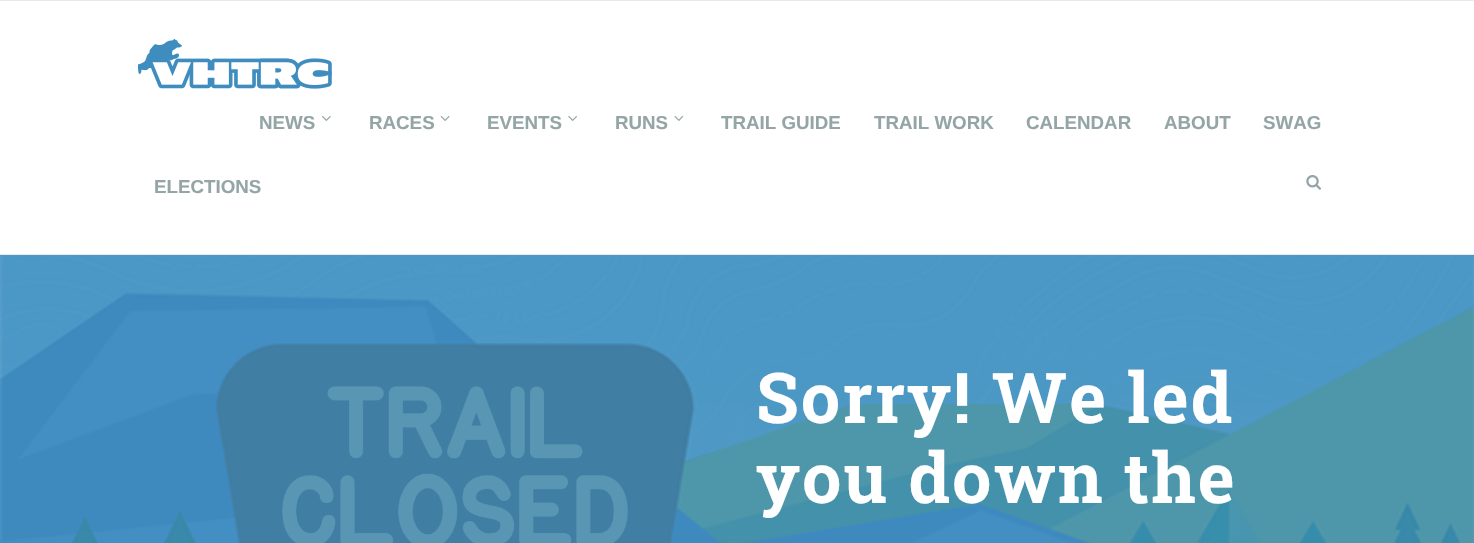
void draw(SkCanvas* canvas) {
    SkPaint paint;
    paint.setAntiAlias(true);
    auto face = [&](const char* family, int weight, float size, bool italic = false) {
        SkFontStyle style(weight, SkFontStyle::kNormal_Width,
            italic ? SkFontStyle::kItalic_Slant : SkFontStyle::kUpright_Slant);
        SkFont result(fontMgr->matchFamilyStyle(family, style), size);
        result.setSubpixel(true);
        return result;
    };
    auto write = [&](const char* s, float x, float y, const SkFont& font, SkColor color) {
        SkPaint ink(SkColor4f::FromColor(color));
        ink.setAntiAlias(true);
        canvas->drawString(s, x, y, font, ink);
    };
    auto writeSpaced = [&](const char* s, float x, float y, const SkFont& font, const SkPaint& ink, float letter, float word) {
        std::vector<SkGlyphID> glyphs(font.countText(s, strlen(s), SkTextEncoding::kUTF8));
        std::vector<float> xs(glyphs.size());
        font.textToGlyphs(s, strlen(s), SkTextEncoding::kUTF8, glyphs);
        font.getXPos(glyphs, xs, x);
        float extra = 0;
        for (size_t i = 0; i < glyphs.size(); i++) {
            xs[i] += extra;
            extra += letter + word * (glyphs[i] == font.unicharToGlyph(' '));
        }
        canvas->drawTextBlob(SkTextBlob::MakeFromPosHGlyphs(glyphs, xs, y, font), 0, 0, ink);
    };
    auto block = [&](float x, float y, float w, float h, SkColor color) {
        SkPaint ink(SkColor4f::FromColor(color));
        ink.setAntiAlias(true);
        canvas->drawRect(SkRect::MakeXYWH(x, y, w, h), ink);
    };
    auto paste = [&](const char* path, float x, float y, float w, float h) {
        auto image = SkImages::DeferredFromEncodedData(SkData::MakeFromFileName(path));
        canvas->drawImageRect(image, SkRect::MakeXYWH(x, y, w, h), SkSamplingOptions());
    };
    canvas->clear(SK_ColorWHITE);
    block(0, 0, 1474, 1, SkColorSetRGB(230, 233, 237));
    block(0, 254, 1474, 1, SkColorSetRGB(230, 233, 237));
    paste("pic1.png", 138, 39, 194, 50);
    auto kFont1 = face("Liberation Sans", 700, 18.75f);
    write("NEWS", 259, 129, kFont1, SkColorSetRGB(149, 165, 166));
    paste("pic2.png", 322, 116, 9, 5);
    write("RACES", 369, 129, kFont1, SkColorSetRGB(149, 165, 166));
    paste("pic3.png", 440, 116, 10, 5);
    write("EVENTS", 487, 129, kFont1, SkColorSetRGB(149, 165, 166));
    paste("pic4.png", 568, 116, 9, 5);
    write("RUNS", 615, 129, kFont1, SkColorSetRGB(149, 165, 166));
    paste("pic5.png", 674, 116, 10, 5);
    write("TRAIL GUIDE", 721, 129, kFont1, SkColorSetRGB(149, 165, 166));
    write("TRAIL WORK", 874, 129, kFont1, SkColorSetRGB(149, 165, 166));
    write("CALENDAR", 1026, 129, kFont1, SkColorSetRGB(149, 165, 166));
    write("ABOUT", 1164, 129, kFont1, SkColorSetRGB(149, 165, 166));
    write("SWAG", 1263, 129, kFont1, SkColorSetRGB(149, 165, 166));
    write("ELECTIONS", 154, 193, kFont1, SkColorSetRGB(149, 165, 166));
    paste("pic6.png", 1306, 175, 15, 15);
    paste("pic7.png", 0, 255, 1474, 288);
    auto kFont2 = face("Roboto Slab", 700, 70);
    paint.setColor(SK_ColorWHITE);
    writeSpaced("Sorry! We led", 756, 423, kFont2, paint, 2.1f, 0);
    writeSpaced("you down the", 756, 503, kFont2, paint, 2.1f, 0);
}
